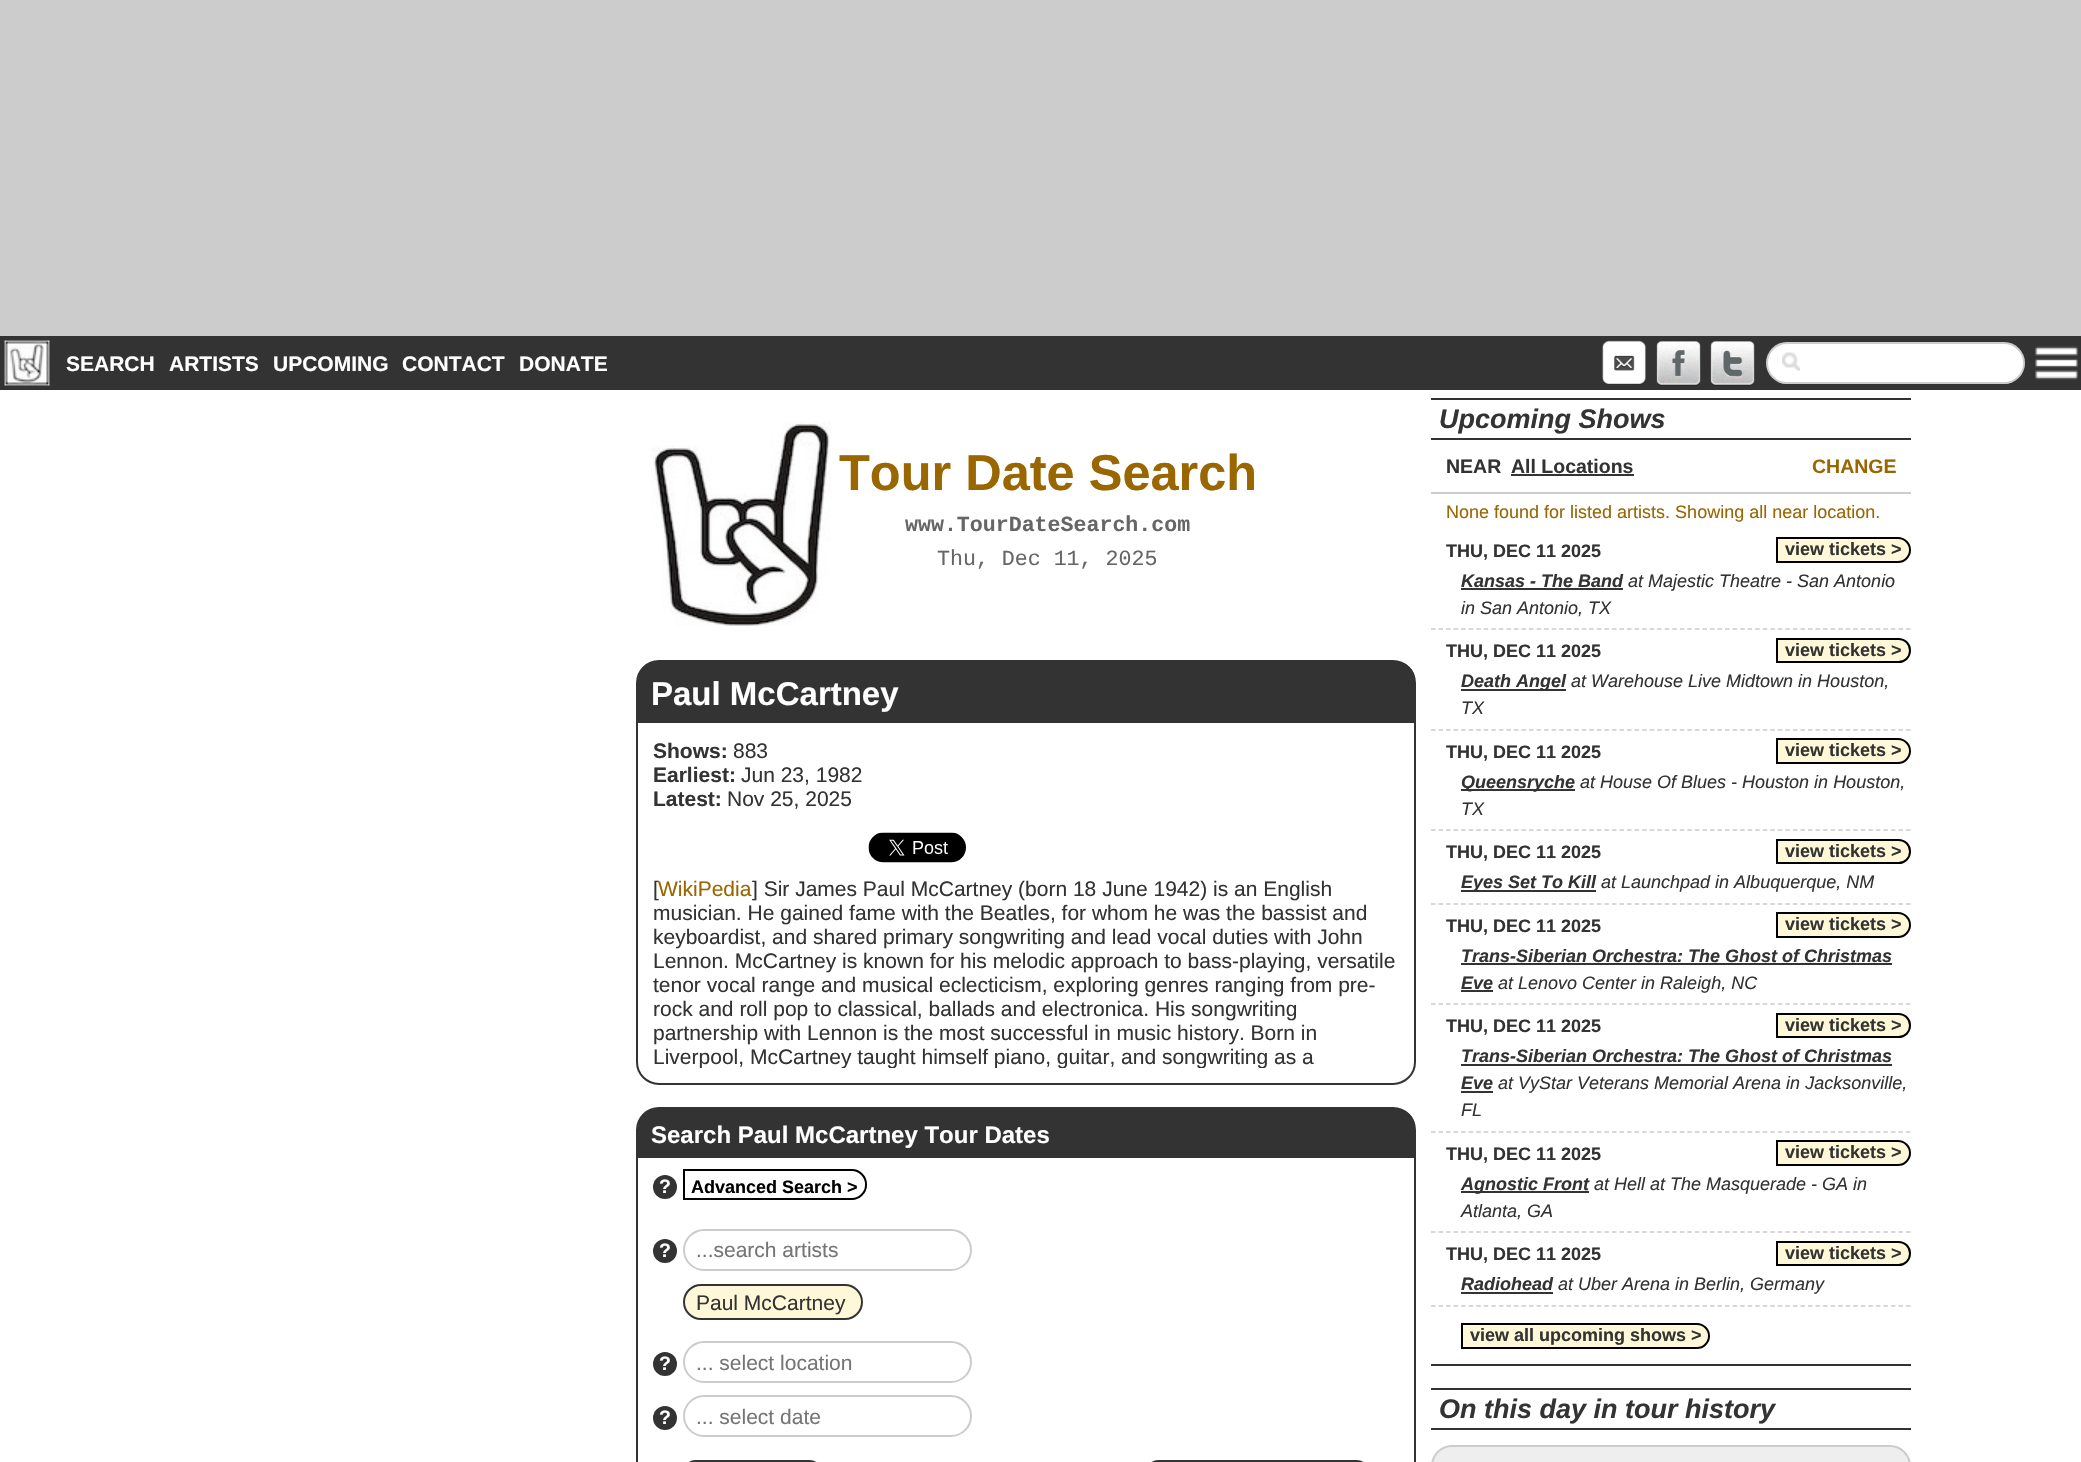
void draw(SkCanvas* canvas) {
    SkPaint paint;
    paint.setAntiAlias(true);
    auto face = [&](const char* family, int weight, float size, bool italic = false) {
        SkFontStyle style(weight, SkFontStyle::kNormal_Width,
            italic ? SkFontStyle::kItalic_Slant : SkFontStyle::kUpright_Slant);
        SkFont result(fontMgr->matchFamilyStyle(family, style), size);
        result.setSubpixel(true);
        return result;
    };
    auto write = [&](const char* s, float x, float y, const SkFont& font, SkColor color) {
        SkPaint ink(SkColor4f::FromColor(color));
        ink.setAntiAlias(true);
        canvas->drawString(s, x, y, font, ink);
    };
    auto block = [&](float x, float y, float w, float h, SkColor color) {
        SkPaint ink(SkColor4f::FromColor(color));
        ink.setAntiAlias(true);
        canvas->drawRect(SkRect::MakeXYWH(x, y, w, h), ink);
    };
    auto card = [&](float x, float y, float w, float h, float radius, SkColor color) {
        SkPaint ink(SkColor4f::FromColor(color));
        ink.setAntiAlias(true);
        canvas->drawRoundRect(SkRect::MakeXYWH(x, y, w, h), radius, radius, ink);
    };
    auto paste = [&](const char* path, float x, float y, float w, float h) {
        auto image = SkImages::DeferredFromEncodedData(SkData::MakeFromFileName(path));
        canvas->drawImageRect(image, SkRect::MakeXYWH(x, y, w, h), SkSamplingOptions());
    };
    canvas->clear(SK_ColorWHITE);
    block(0, 0, 2081, 336, SkColorSetRGB(204, 204, 204));
    block(0, 336, 2081, 54, SkColorSetRGB(51, 51, 51));
    paste("pic1.png", 4, 340, 46, 46);
    auto kFont1 = face("Liberation Sans", 700, 21);
    write("SEARCH", 66, 371, kFont1, SK_ColorWHITE);
    write("ARTISTS", 169, 371, kFont1, SK_ColorWHITE);
    write("UPCOMING", 273, 371, kFont1, SK_ColorWHITE);
    write("CONTACT", 402, 371, kFont1, SK_ColorWHITE);
    write("DONATE", 519, 371, kFont1, SK_ColorWHITE);
    paste("pic2.png", 1602, 340, 44, 45);
    paste("pic3.png", 1656, 341, 45, 45);
    paste("pic4.png", 1710, 341, 45, 45);
    card(1766, 342, 259, 42, 21, SK_ColorWHITE);
    paste("pic5.png", 1782, 352, 18, 19);
    paint.setStyle(SkPaint::kStroke_Style);
    paint.setStrokeWidth(2);
    paint.setColor(SkColorSetARGB(51, 0, 0, 0));
    canvas->drawRoundRect(SkRect::MakeXYWH(1767, 343, 257, 40), 20, 20, paint);
    paste("pic6.png", 2035, 346, 43, 34);
    paste("pic7.png", 651, 421, 180, 205);
    auto kFont2 = face("Liberation Sans", 700, 50.5f);
    write("Tour Date Search", 839, 490, kFont2, SkColorSetRGB(153, 102, 0));
    auto kFont3 = face("Liberation Mono", 700, 21.6f);
    write("www.TourDateSearch.com", 905, 531, kFont3, SkColorSetRGB(102, 102, 102));
    auto kFont4 = face("Liberation Mono", 400, 21.6f);
    write("Thu, Dec 11, 2025", 937, 565, kFont4, SkColorSetRGB(102, 102, 102));
    paint.setColor(SkColorSetRGB(51, 51, 51));
    canvas->drawRoundRect(SkRect::MakeXYWH(637, 661, 778, 423), 22, 22, paint);
    paint.setStyle(SkPaint::kFill_Style);
    canvas->drawPath(SkPathBuilder().moveTo(656, 663).lineTo(1397, 663).cubicTo(1406.5f, 663, 1414, 670.5f, 1414, 680).lineTo(1414, 722).lineTo(639, 722).lineTo(639, 680).cubicTo(639, 670.5f, 646.5f, 663, 656, 663).close().detach(), paint);
    paint.setStyle(SkPaint::kStroke_Style);
    canvas->drawPath(SkPathBuilder().moveTo(656, 663).lineTo(1397, 663).cubicTo(1406.5f, 663, 1414, 670.5f, 1414, 680).lineTo(1414, 722).lineTo(639, 722).lineTo(639, 680).cubicTo(639, 670.5f, 646.5f, 663, 656, 663).close().detach(), paint);
    auto kFont5 = face("Liberation Sans", 700, 33);
    write("Paul McCartney", 651, 705, kFont5, SK_ColorWHITE);
    write("Shows:", 653, 758, kFont1, SkColorSetRGB(51, 51, 51));
    auto kFont6 = face("Liberation Sans", 400, 21);
    write("883", 733, 758, kFont6, SkColorSetRGB(51, 51, 51));
    write("Earliest:", 653, 782, kFont1, SkColorSetRGB(51, 51, 51));
    write("Jun 23, 1982", 741, 782, kFont6, SkColorSetRGB(51, 51, 51));
    write("Latest:", 653, 806, kFont1, SkColorSetRGB(51, 51, 51));
    write("Nov 25, 2025", 727, 806, kFont6, SkColorSetRGB(51, 51, 51));
    paste("pic8.png", 868, 832, 98, 31);
    write("[", 653, 896, kFont6, SkColorSetRGB(51, 51, 51));
    write("WikiPedia", 658, 896, kFont6, SkColorSetRGB(153, 102, 0));
    write("] Sir James Paul McCartney (born 18 June 1942) is an English", 752, 896, kFont6, SkColorSetRGB(51, 51, 51));
    write("musician. He gained fame with the Beatles, for whom he was the bassist and", 653, 920, kFont6, SkColorSetRGB(51, 51, 51));
    write("keyboardist, and shared primary songwriting and lead vocal duties with John", 653, 944, kFont6, SkColorSetRGB(51, 51, 51));
    write("Lennon. McCartney is known for his melodic approach to bass-playing, versatile", 653, 968, kFont6, SkColorSetRGB(51, 51, 51));
    write("tenor vocal range and musical eclecticism, exploring genres ranging from pre-", 653, 992, kFont6, SkColorSetRGB(51, 51, 51));
    write("rock and roll pop to classical, ballads and electronica. His songwriting", 653, 1016, kFont6, SkColorSetRGB(51, 51, 51));
    write("partnership with Lennon is the most successful in music history. Born in", 653, 1040, kFont6, SkColorSetRGB(51, 51, 51));
    canvas->save();
    canvas->clipRect(SkRect::MakeXYWH(653, 738, 747, 330));
    write("Liverpool, McCartney taught himself piano, guitar, and songwriting as a", 653, 1064, kFont6, SkColorSetRGB(51, 51, 51));
    canvas->restore();
    canvas->drawRoundRect(SkRect::MakeXYWH(637, 1108, 778, 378), 22, 22, paint);
    paint.setStyle(SkPaint::kFill_Style);
    canvas->drawPath(SkPathBuilder().moveTo(656, 1110).lineTo(1397, 1110).cubicTo(1406.5f, 1110, 1414, 1117.5f, 1414, 1127).lineTo(1414, 1157).lineTo(639, 1157).lineTo(639, 1127).cubicTo(639, 1117.5f, 646.5f, 1110, 656, 1110).close().detach(), paint);
    paint.setStyle(SkPaint::kStroke_Style);
    canvas->drawPath(SkPathBuilder().moveTo(656, 1110).lineTo(1397, 1110).cubicTo(1406.5f, 1110, 1414, 1117.5f, 1414, 1127).lineTo(1414, 1157).lineTo(639, 1157).lineTo(639, 1127).cubicTo(639, 1117.5f, 646.5f, 1110, 656, 1110).close().detach(), paint);
    auto kFont7 = face("Liberation Sans", 700, 24);
    write("Search Paul McCartney Tour Dates", 651, 1143, kFont7, SK_ColorWHITE);
    paint.setStyle(SkPaint::kFill_Style);
    canvas->drawCircle(665, 1187, 12, paint);
    auto kFont8 = face("Liberation Sans", 700, 19.5f);
    write("?", 659, 1193, kFont8, SK_ColorWHITE);
    paint.setStyle(SkPaint::kStroke_Style);
    paint.setColor(SK_ColorBLACK);
    canvas->drawPath(SkPathBuilder().moveTo(684, 1170).lineTo(852, 1170).cubicTo(859.5f, 1170, 866, 1176.5f, 866, 1184).lineTo(866, 1185).cubicTo(866, 1192.5f, 859.5f, 1199, 852, 1199).lineTo(684, 1199).close().detach(), paint);
    auto kFont9 = face("Liberation Sans", 700, 18);
    write("Advanced Search >", 691, 1193, kFont9, SK_ColorBLACK);
    paint.setStyle(SkPaint::kFill_Style);
    paint.setColor(SkColorSetRGB(51, 51, 51));
    canvas->drawCircle(665, 1251, 12, paint);
    write("?", 659, 1257, kFont8, SK_ColorWHITE);
    paint.setStyle(SkPaint::kStroke_Style);
    paint.setColor(SkColorSetRGB(204, 204, 204));
    canvas->drawRoundRect(SkRect::MakeXYWH(684, 1230, 287, 40), 20, 20, paint);
    write("...search artists", 696, 1257, kFont6, SkColorSetRGB(117, 117, 117));
    paint.setStyle(SkPaint::kFill_Style);
    paint.setColor(SkColorSetRGB(255, 248, 216));
    canvas->drawRoundRect(SkRect::MakeXYWH(684, 1285, 178, 34), 17, 17, paint);
    paint.setStyle(SkPaint::kStroke_Style);
    paint.setColor(SkColorSetRGB(51, 51, 51));
    canvas->drawRoundRect(SkRect::MakeXYWH(684, 1285, 178, 34), 17, 17, paint);
    write("Paul McCartney", 696, 1310, kFont6, SkColorSetRGB(51, 51, 51));
    paint.setStyle(SkPaint::kFill_Style);
    canvas->drawCircle(665, 1364, 12, paint);
    write("?", 659, 1370, kFont8, SK_ColorWHITE);
    paint.setStyle(SkPaint::kStroke_Style);
    paint.setColor(SkColorSetRGB(204, 204, 204));
    canvas->drawRoundRect(SkRect::MakeXYWH(684, 1342, 287, 40), 20, 20, paint);
    write("... select location", 696, 1370, kFont6, SkColorSetRGB(117, 117, 117));
    paint.setStyle(SkPaint::kFill_Style);
    paint.setColor(SkColorSetRGB(51, 51, 51));
    canvas->drawCircle(665, 1418, 12, paint);
    write("?", 659, 1424, kFont8, SK_ColorWHITE);
    paint.setStyle(SkPaint::kStroke_Style);
    paint.setColor(SkColorSetRGB(204, 204, 204));
    canvas->drawRoundRect(SkRect::MakeXYWH(684, 1396, 287, 40), 20, 20, paint);
    write("... select date", 696, 1424, kFont6, SkColorSetRGB(117, 117, 117));
    paint.setColor(SkColorSetRGB(51, 51, 51));
    canvas->drawRoundRect(SkRect::MakeXYWH(684, 1461, 137, 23), 20, 20, paint);
    canvas->drawRoundRect(SkRect::MakeXYWH(1146, 1461, 223, 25), 21.5f, 21.5f, paint);
    block(1431, 398, 480, 2, SkColorSetRGB(51, 51, 51));
    block(1431, 438, 480, 2, SkColorSetRGB(51, 51, 51));
    auto kFont10 = face("Liberation Sans", 700, 27, true);
    write("Upcoming Shows", 1439, 428, kFont10, SkColorSetRGB(51, 51, 51));
    block(1431, 492, 480, 2, SkColorSetRGB(204, 204, 204));
    write("NEAR", 1446, 473, kFont8, SkColorSetRGB(51, 51, 51));
    write("All Locations", 1511, 473, kFont8, SkColorSetRGB(51, 51, 51));
    block(1511, 474, 123, 2, SkColorSetRGB(51, 51, 51));
    write("CHANGE", 1812, 473, kFont8, SkColorSetRGB(153, 102, 0));
    auto kFont11 = face("Liberation Sans", 400, 18);
    write("None found for listed artists. Showing all near location.", 1446, 518, kFont11, SkColorSetRGB(153, 102, 0));
    paint.setStrokeWidth(1.5f);
    paint.setColor(SkColorSetRGB(204, 204, 204));
    paint.setPathEffect(SkDashPathEffect::Make({{4.5f, 3.04f}}, 0));
    canvas->drawPath(SkPathBuilder().moveTo(1431, 629).lineTo(1911, 629).detach(), paint);
    paint.setPathEffect(nullptr);
    write("THU, DEC 11 2025", 1446, 557, kFont9, SkColorSetRGB(51, 51, 51));
    paint.setStyle(SkPaint::kFill_Style);
    paint.setColor(SkColorSetRGB(255, 248, 216));
    canvas->drawPath(SkPathBuilder().moveTo(1777, 538).lineTo(1898, 538).cubicTo(1904.5f, 538, 1910, 543.5f, 1910, 550).cubicTo(1910, 556.5f, 1904.5f, 562, 1898, 562).lineTo(1777, 562).close().detach(), paint);
    paint.setStyle(SkPaint::kStroke_Style);
    paint.setStrokeWidth(2);
    paint.setColor(SK_ColorBLACK);
    canvas->drawPath(SkPathBuilder().moveTo(1777, 538).lineTo(1898, 538).cubicTo(1904.5f, 538, 1910, 543.5f, 1910, 550).cubicTo(1910, 556.5f, 1904.5f, 562, 1898, 562).lineTo(1777, 562).close().detach(), paint);
    write("view tickets >", 1785, 555, kFont9, SkColorSetRGB(51, 51, 51));
    auto kFont12 = face("Liberation Sans", 700, 18, true);
    write("Kansas - The Band", 1461, 587, kFont12, SkColorSetRGB(51, 51, 51));
    block(1461, 588, 162, 2, SkColorSetRGB(51, 51, 51));
    auto kFont13 = face("Liberation Sans", 400, 18, true);
    write("at Majestic Theatre - San Antonio", 1628, 587, kFont13, SkColorSetRGB(51, 51, 51));
    write("in San Antonio, TX", 1461, 614, kFont13, SkColorSetRGB(51, 51, 51));
    paint.setStrokeWidth(1.5f);
    paint.setColor(SkColorSetRGB(204, 204, 204));
    paint.setPathEffect(SkDashPathEffect::Make({{4.5f, 3.04f}}, 0));
    canvas->drawPath(SkPathBuilder().moveTo(1431, 730).lineTo(1911, 730).detach(), paint);
    paint.setPathEffect(nullptr);
    write("THU, DEC 11 2025", 1446, 657, kFont9, SkColorSetRGB(51, 51, 51));
    paint.setStyle(SkPaint::kFill_Style);
    paint.setColor(SkColorSetRGB(255, 248, 216));
    canvas->drawPath(SkPathBuilder().moveTo(1777, 639).lineTo(1898.5f, 639).cubicTo(1905, 639, 1910, 644, 1910, 650.5f).cubicTo(1910, 657, 1905, 662, 1898.5f, 662).lineTo(1777, 662).close().detach(), paint);
    paint.setStyle(SkPaint::kStroke_Style);
    paint.setStrokeWidth(2);
    paint.setColor(SK_ColorBLACK);
    canvas->drawPath(SkPathBuilder().moveTo(1777, 639).lineTo(1898.5f, 639).cubicTo(1905, 639, 1910, 644, 1910, 650.5f).cubicTo(1910, 657, 1905, 662, 1898.5f, 662).lineTo(1777, 662).close().detach(), paint);
    write("view tickets >", 1785, 656, kFont9, SkColorSetRGB(51, 51, 51));
    block(1461, 689, 105, 2, SkColorSetRGB(51, 51, 51));
    write("Death Angel", 1461, 687, kFont12, SkColorSetRGB(51, 51, 51));
    write("at Warehouse Live Midtown in Houston,", 1571, 687, kFont13, SkColorSetRGB(51, 51, 51));
    write("TX", 1461, 714, kFont13, SkColorSetRGB(51, 51, 51));
    paint.setStrokeWidth(1.5f);
    paint.setColor(SkColorSetRGB(204, 204, 204));
    paint.setPathEffect(SkDashPathEffect::Make({{4.5f, 3.04f}}, 0));
    canvas->drawPath(SkPathBuilder().moveTo(1431, 830).lineTo(1911, 830).detach(), paint);
    paint.setPathEffect(nullptr);
    write("THU, DEC 11 2025", 1446, 758, kFont9, SkColorSetRGB(51, 51, 51));
    paint.setStyle(SkPaint::kFill_Style);
    paint.setColor(SkColorSetRGB(255, 248, 216));
    canvas->drawPath(SkPathBuilder().moveTo(1777, 739).lineTo(1898, 739).cubicTo(1904.5f, 739, 1910, 744.5f, 1910, 751).cubicTo(1910, 757.5f, 1904.5f, 763, 1898, 763).lineTo(1777, 763).close().detach(), paint);
    paint.setStyle(SkPaint::kStroke_Style);
    paint.setStrokeWidth(2);
    paint.setColor(SK_ColorBLACK);
    canvas->drawPath(SkPathBuilder().moveTo(1777, 739).lineTo(1898, 739).cubicTo(1904.5f, 739, 1910, 744.5f, 1910, 751).cubicTo(1910, 757.5f, 1904.5f, 763, 1898, 763).lineTo(1777, 763).close().detach(), paint);
    write("view tickets >", 1785, 756, kFont9, SkColorSetRGB(51, 51, 51));
    block(1461, 789, 114, 2, SkColorSetRGB(51, 51, 51));
    write("Queensryche", 1461, 788, kFont12, SkColorSetRGB(51, 51, 51));
    write("at House Of Blues - Houston in Houston,", 1580, 788, kFont13, SkColorSetRGB(51, 51, 51));
    write("TX", 1461, 815, kFont13, SkColorSetRGB(51, 51, 51));
    paint.setStrokeWidth(1.5f);
    paint.setColor(SkColorSetRGB(204, 204, 204));
    paint.setPathEffect(SkDashPathEffect::Make({{4.5f, 3.04f}}, 0));
    canvas->drawPath(SkPathBuilder().moveTo(1431, 904).lineTo(1911, 904).detach(), paint);
    paint.setPathEffect(nullptr);
    write("THU, DEC 11 2025", 1446, 858, kFont9, SkColorSetRGB(51, 51, 51));
    paint.setStyle(SkPaint::kFill_Style);
    paint.setColor(SkColorSetRGB(255, 248, 216));
    canvas->drawPath(SkPathBuilder().moveTo(1777, 840).lineTo(1898.5f, 840).cubicTo(1905, 840, 1910, 845, 1910, 851.5f).cubicTo(1910, 858, 1905, 863, 1898.5f, 863).lineTo(1777, 863).close().detach(), paint);
    paint.setStyle(SkPaint::kStroke_Style);
    paint.setStrokeWidth(2);
    paint.setColor(SK_ColorBLACK);
    canvas->drawPath(SkPathBuilder().moveTo(1777, 840).lineTo(1898.5f, 840).cubicTo(1905, 840, 1910, 845, 1910, 851.5f).cubicTo(1910, 858, 1905, 863, 1898.5f, 863).lineTo(1777, 863).close().detach(), paint);
    write("view tickets >", 1785, 857, kFont9, SkColorSetRGB(51, 51, 51));
    block(1461, 890, 135, 2, SkColorSetRGB(51, 51, 51));
    write("Eyes Set To Kill", 1461, 888, kFont12, SkColorSetRGB(51, 51, 51));
    write("at Launchpad in Albuquerque, NM", 1601, 888, kFont13, SkColorSetRGB(51, 51, 51));
    paint.setStrokeWidth(1.5f);
    paint.setColor(SkColorSetRGB(204, 204, 204));
    paint.setPathEffect(SkDashPathEffect::Make({{4.5f, 3.04f}}, 0));
    canvas->drawPath(SkPathBuilder().moveTo(1431, 1004).lineTo(1911, 1004).detach(), paint);
    paint.setPathEffect(nullptr);
    write("THU, DEC 11 2025", 1446, 932, kFont9, SkColorSetRGB(51, 51, 51));
    paint.setStyle(SkPaint::kFill_Style);
    paint.setColor(SkColorSetRGB(255, 248, 216));
    canvas->drawPath(SkPathBuilder().moveTo(1777, 913).lineTo(1898, 913).cubicTo(1904.5f, 913, 1910, 918.5f, 1910, 925).cubicTo(1910, 931.5f, 1904.5f, 937, 1898, 937).lineTo(1777, 937).close().detach(), paint);
    paint.setStyle(SkPaint::kStroke_Style);
    paint.setStrokeWidth(2);
    paint.setColor(SK_ColorBLACK);
    canvas->drawPath(SkPathBuilder().moveTo(1777, 913).lineTo(1898, 913).cubicTo(1904.5f, 913, 1910, 918.5f, 1910, 925).cubicTo(1910, 931.5f, 1904.5f, 937, 1898, 937).lineTo(1777, 937).close().detach(), paint);
    write("view tickets >", 1785, 930, kFont9, SkColorSetRGB(51, 51, 51));
    write("Trans-Siberian Orchestra: The Ghost of Christmas", 1461, 962, kFont12, SkColorSetRGB(51, 51, 51));
    block(1461, 963, 431, 2, SkColorSetRGB(51, 51, 51));
    write("Eve", 1461, 989, kFont12, SkColorSetRGB(51, 51, 51));
    block(1461, 990, 32, 2, SkColorSetRGB(51, 51, 51));
    write("at Lenovo Center in Raleigh, NC", 1498, 989, kFont13, SkColorSetRGB(51, 51, 51));
    paint.setStrokeWidth(1.5f);
    paint.setColor(SkColorSetRGB(204, 204, 204));
    paint.setPathEffect(SkDashPathEffect::Make({{4.5f, 3.04f}}, 0));
    canvas->drawPath(SkPathBuilder().moveTo(1431, 1132).lineTo(1911, 1132).detach(), paint);
    paint.setPathEffect(nullptr);
    write("THU, DEC 11 2025", 1446, 1032, kFont9, SkColorSetRGB(51, 51, 51));
    paint.setStyle(SkPaint::kFill_Style);
    paint.setColor(SkColorSetRGB(255, 248, 216));
    canvas->drawPath(SkPathBuilder().moveTo(1777, 1014).lineTo(1898.5f, 1014).cubicTo(1905, 1014, 1910, 1019, 1910, 1025.5f).cubicTo(1910, 1032, 1905, 1037, 1898.5f, 1037).lineTo(1777, 1037).close().detach(), paint);
    paint.setStyle(SkPaint::kStroke_Style);
    paint.setStrokeWidth(2);
    paint.setColor(SK_ColorBLACK);
    canvas->drawPath(SkPathBuilder().moveTo(1777, 1014).lineTo(1898.5f, 1014).cubicTo(1905, 1014, 1910, 1019, 1910, 1025.5f).cubicTo(1910, 1032, 1905, 1037, 1898.5f, 1037).lineTo(1777, 1037).close().detach(), paint);
    write("view tickets >", 1785, 1031, kFont9, SkColorSetRGB(51, 51, 51));
    write("Trans-Siberian Orchestra: The Ghost of Christmas", 1461, 1062, kFont12, SkColorSetRGB(51, 51, 51));
    block(1461, 1064, 431, 2, SkColorSetRGB(51, 51, 51));
    write("Eve", 1461, 1089, kFont12, SkColorSetRGB(51, 51, 51));
    block(1461, 1091, 32, 2, SkColorSetRGB(51, 51, 51));
    write("at VyStar Veterans Memorial Arena in Jacksonville,", 1498, 1089, kFont13, SkColorSetRGB(51, 51, 51));
    write("FL", 1461, 1116, kFont13, SkColorSetRGB(51, 51, 51));
    paint.setStrokeWidth(1.5f);
    paint.setColor(SkColorSetRGB(204, 204, 204));
    paint.setPathEffect(SkDashPathEffect::Make({{4.5f, 3.04f}}, 0));
    canvas->drawPath(SkPathBuilder().moveTo(1431, 1232).lineTo(1911, 1232).detach(), paint);
    paint.setPathEffect(nullptr);
    write("THU, DEC 11 2025", 1446, 1160, kFont9, SkColorSetRGB(51, 51, 51));
    paint.setStyle(SkPaint::kFill_Style);
    paint.setColor(SkColorSetRGB(255, 248, 216));
    canvas->drawPath(SkPathBuilder().moveTo(1777, 1141).lineTo(1898, 1141).cubicTo(1904.5f, 1141, 1910, 1146.5f, 1910, 1153).cubicTo(1910, 1159.5f, 1904.5f, 1165, 1898, 1165).lineTo(1777, 1165).close().detach(), paint);
    paint.setStyle(SkPaint::kStroke_Style);
    paint.setStrokeWidth(2);
    paint.setColor(SK_ColorBLACK);
    canvas->drawPath(SkPathBuilder().moveTo(1777, 1141).lineTo(1898, 1141).cubicTo(1904.5f, 1141, 1910, 1146.5f, 1910, 1153).cubicTo(1910, 1159.5f, 1904.5f, 1165, 1898, 1165).lineTo(1777, 1165).close().detach(), paint);
    write("view tickets >", 1785, 1158, kFont9, SkColorSetRGB(51, 51, 51));
    block(1461, 1191, 128, 2, SkColorSetRGB(51, 51, 51));
    write("Agnostic Front", 1461, 1190, kFont12, SkColorSetRGB(51, 51, 51));
    write("at Hell at The Masquerade - GA in", 1594, 1190, kFont13, SkColorSetRGB(51, 51, 51));
    write("Atlanta, GA", 1461, 1217, kFont13, SkColorSetRGB(51, 51, 51));
    paint.setStrokeWidth(1.5f);
    paint.setColor(SkColorSetRGB(204, 204, 204));
    paint.setPathEffect(SkDashPathEffect::Make({{4.5f, 3.04f}}, 0));
    canvas->drawPath(SkPathBuilder().moveTo(1431, 1306).lineTo(1911, 1306).detach(), paint);
    paint.setPathEffect(nullptr);
    write("THU, DEC 11 2025", 1446, 1260, kFont9, SkColorSetRGB(51, 51, 51));
    paint.setStyle(SkPaint::kFill_Style);
    paint.setColor(SkColorSetRGB(255, 248, 216));
    canvas->drawPath(SkPathBuilder().moveTo(1777, 1242).lineTo(1898.5f, 1242).cubicTo(1905, 1242, 1910, 1247, 1910, 1253.5f).cubicTo(1910, 1260, 1905, 1265, 1898.5f, 1265).lineTo(1777, 1265).close().detach(), paint);
    paint.setStyle(SkPaint::kStroke_Style);
    paint.setStrokeWidth(2);
    paint.setColor(SK_ColorBLACK);
    canvas->drawPath(SkPathBuilder().moveTo(1777, 1242).lineTo(1898.5f, 1242).cubicTo(1905, 1242, 1910, 1247, 1910, 1253.5f).cubicTo(1910, 1260, 1905, 1265, 1898.5f, 1265).lineTo(1777, 1265).close().detach(), paint);
    write("view tickets >", 1785, 1259, kFont9, SkColorSetRGB(51, 51, 51));
    write("Radiohead", 1461, 1290, kFont12, SkColorSetRGB(51, 51, 51));
    block(1461, 1292, 92, 2, SkColorSetRGB(51, 51, 51));
    write("at Uber Arena in Berlin, Germany", 1558, 1290, kFont13, SkColorSetRGB(51, 51, 51));
    paint.setStyle(SkPaint::kFill_Style);
    paint.setColor(SkColorSetRGB(255, 248, 216));
    canvas->drawPath(SkPathBuilder().moveTo(1462, 1324).lineTo(1697, 1324).cubicTo(1703.5f, 1324, 1709, 1329.5f, 1709, 1336).cubicTo(1709, 1342.5f, 1703.5f, 1348, 1697, 1348).lineTo(1462, 1348).close().detach(), paint);
    paint.setStyle(SkPaint::kStroke_Style);
    paint.setColor(SK_ColorBLACK);
    canvas->drawPath(SkPathBuilder().moveTo(1462, 1324).lineTo(1697, 1324).cubicTo(1703.5f, 1324, 1709, 1329.5f, 1709, 1336).cubicTo(1709, 1342.5f, 1703.5f, 1348, 1697, 1348).lineTo(1462, 1348).close().detach(), paint);
    write("view all upcoming shows >", 1470, 1341, kFont9, SkColorSetRGB(51, 51, 51));
    block(1431, 1364, 480, 2, SkColorSetRGB(51, 51, 51));
    block(1431, 1388, 480, 2, SkColorSetRGB(51, 51, 51));
    block(1431, 1428, 480, 2, SkColorSetRGB(51, 51, 51));
    write("On this day in tour history", 1439, 1418, kFont10, SkColorSetRGB(51, 51, 51));
    paint.setStyle(SkPaint::kFill_Style);
    paint.setColor(SkColorSetRGB(238, 238, 238));
    canvas->drawRoundRect(SkRect::MakeXYWH(1432, 1446, 478, 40), 22, 22, paint);
    paint.setStyle(SkPaint::kStroke_Style);
    paint.setColor(SkColorSetRGB(204, 204, 204));
    canvas->drawRoundRect(SkRect::MakeXYWH(1432, 1446, 478, 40), 22, 22, paint);
}
